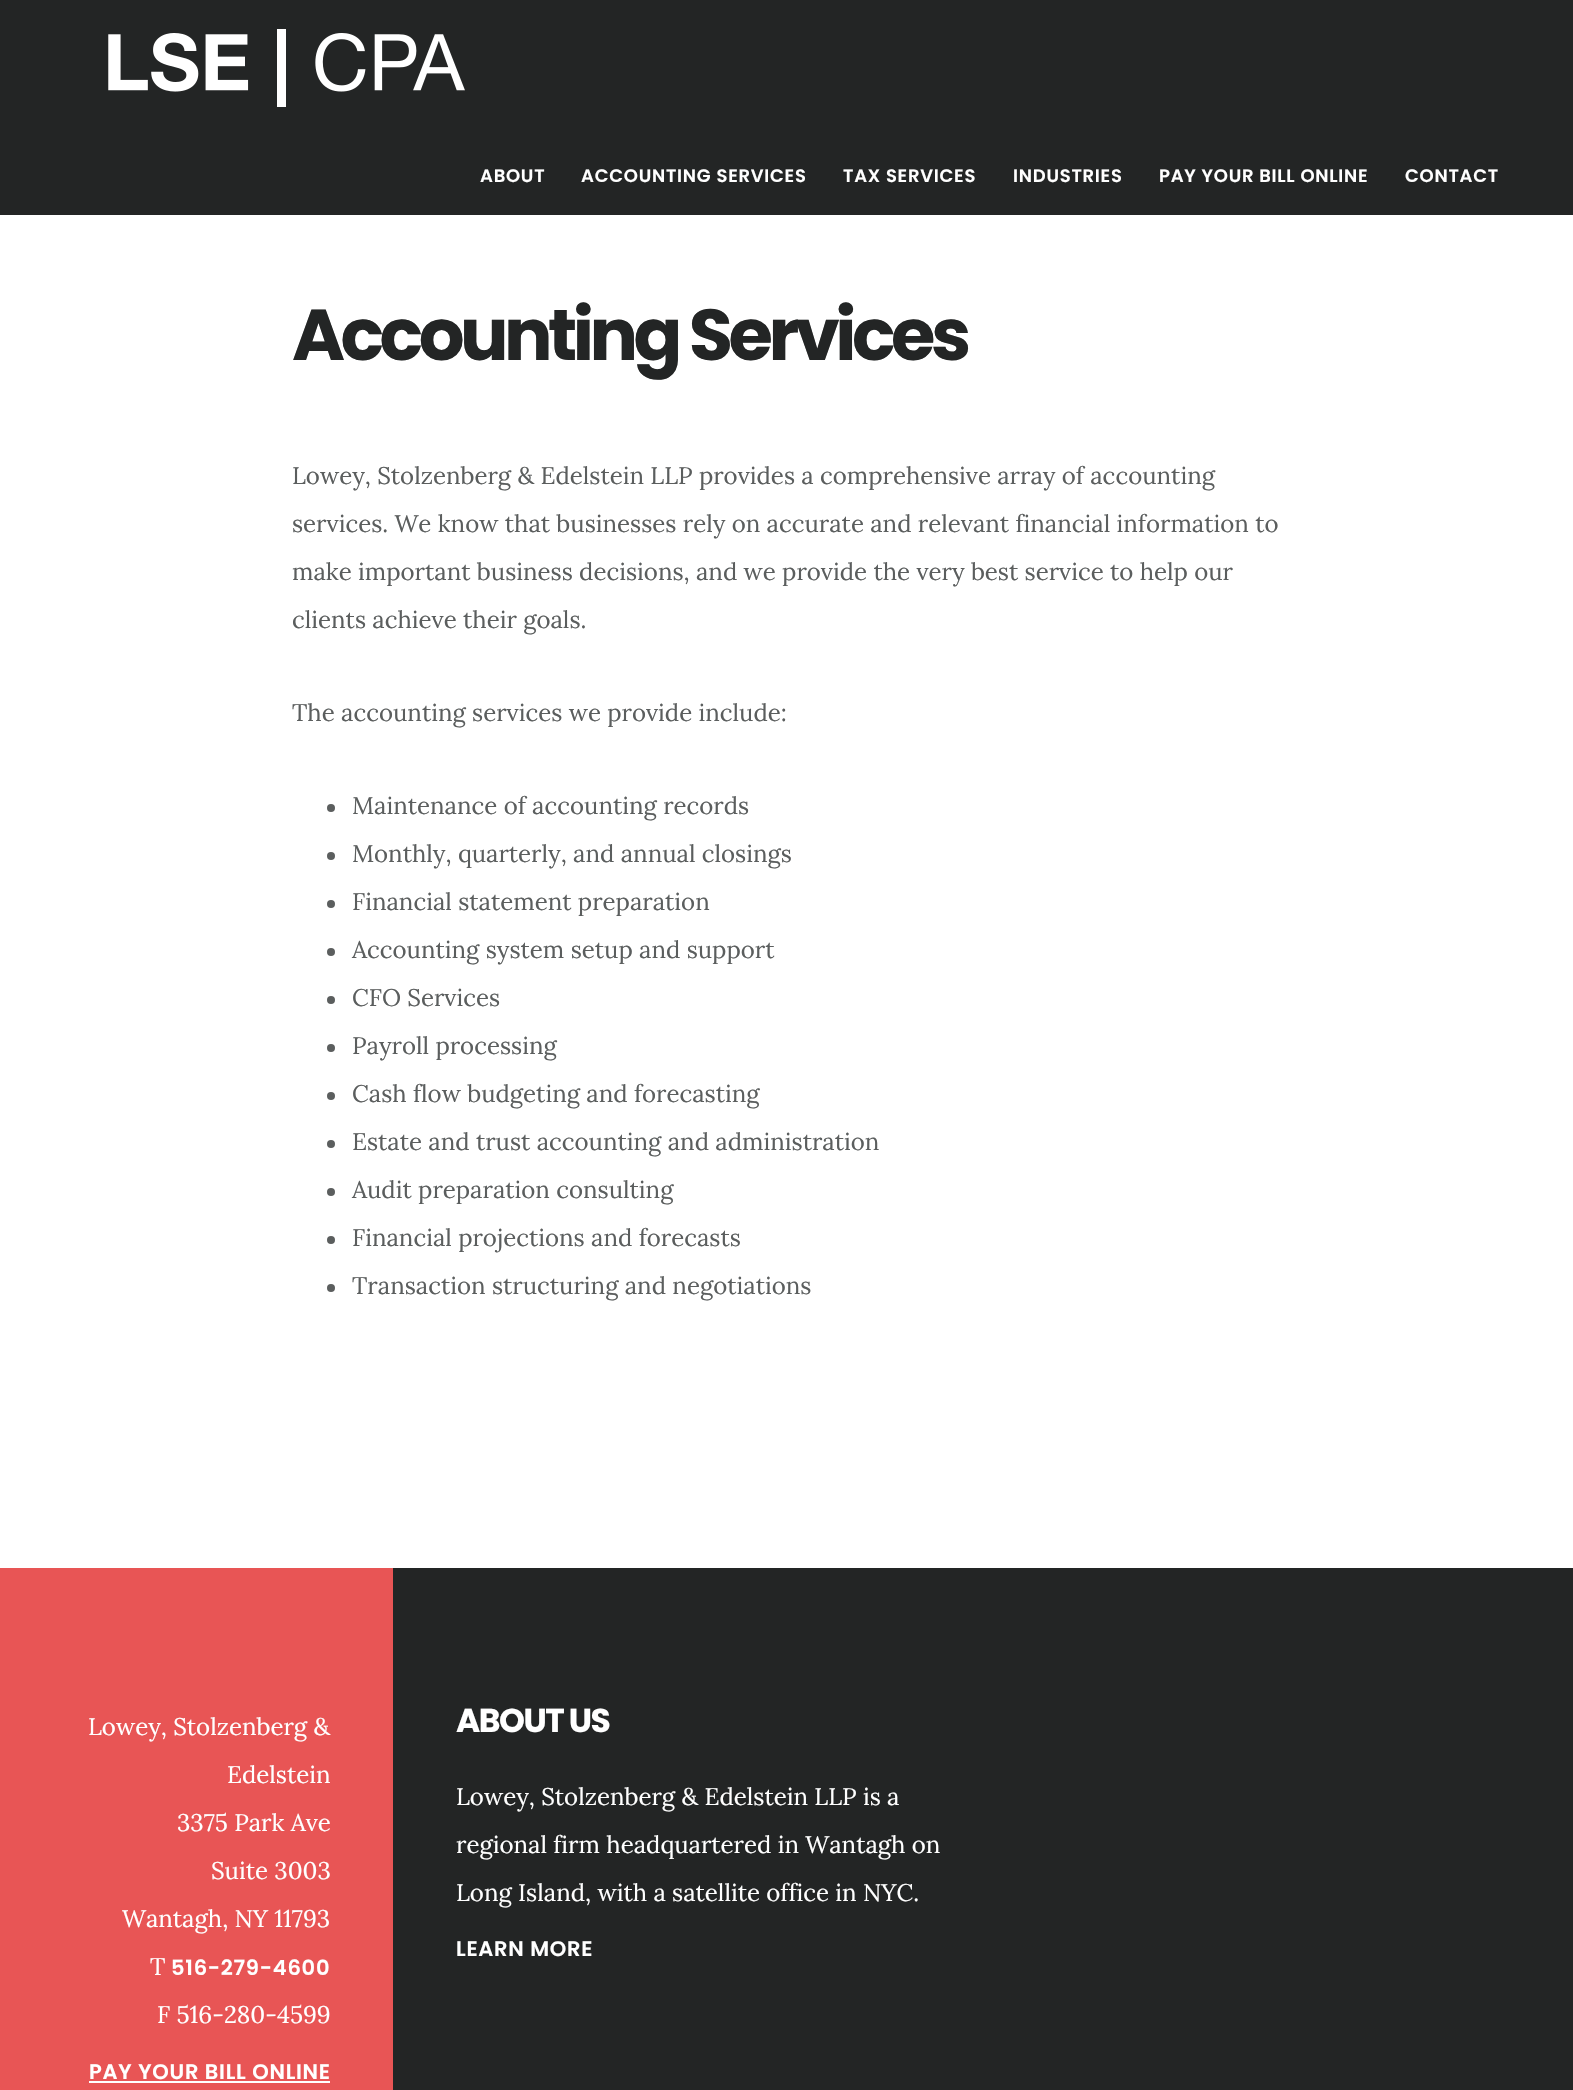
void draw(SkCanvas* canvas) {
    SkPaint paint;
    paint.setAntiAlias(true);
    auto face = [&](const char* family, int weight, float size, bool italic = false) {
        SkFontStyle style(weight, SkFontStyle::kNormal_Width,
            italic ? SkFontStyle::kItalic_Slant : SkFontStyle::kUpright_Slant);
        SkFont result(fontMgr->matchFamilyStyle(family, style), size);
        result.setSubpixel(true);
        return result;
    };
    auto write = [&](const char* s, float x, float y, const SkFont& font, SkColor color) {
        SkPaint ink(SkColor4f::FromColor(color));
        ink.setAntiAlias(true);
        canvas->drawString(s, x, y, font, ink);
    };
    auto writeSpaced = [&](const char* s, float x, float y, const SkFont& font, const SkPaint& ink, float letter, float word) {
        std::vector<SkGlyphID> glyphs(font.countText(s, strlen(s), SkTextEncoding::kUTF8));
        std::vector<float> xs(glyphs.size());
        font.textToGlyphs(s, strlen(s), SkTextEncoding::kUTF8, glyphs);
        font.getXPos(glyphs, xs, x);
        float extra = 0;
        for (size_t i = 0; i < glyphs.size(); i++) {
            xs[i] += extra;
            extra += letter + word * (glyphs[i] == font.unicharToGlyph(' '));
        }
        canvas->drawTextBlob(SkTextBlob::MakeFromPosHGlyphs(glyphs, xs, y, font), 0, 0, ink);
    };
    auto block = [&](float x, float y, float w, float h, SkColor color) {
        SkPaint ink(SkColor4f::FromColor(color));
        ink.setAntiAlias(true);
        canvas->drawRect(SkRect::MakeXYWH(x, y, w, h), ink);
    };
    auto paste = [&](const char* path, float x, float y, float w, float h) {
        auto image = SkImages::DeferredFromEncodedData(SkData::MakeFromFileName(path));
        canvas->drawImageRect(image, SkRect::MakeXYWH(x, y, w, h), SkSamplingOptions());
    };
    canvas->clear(SK_ColorWHITE);
    block(0, 0, 1573, 215, SkColorSetRGB(35, 37, 37));
    paste("pic1.png", 108, 29, 357, 78);
    auto kFont1 = face("Poppins", 600, 18);
    paint.setColor(SK_ColorWHITE);
    writeSpaced("ABOUT", 480, 182, kFont1, paint, 0.75f, 0);
    writeSpaced("ACCOUNTING SERVICES", 581, 182, kFont1, paint, 0.75f, 0);
    writeSpaced("TAX SERVICES", 843, 182, kFont1, paint, 0.75f, 0);
    writeSpaced("INDUSTRIES", 1013, 182, kFont1, paint, 0.75f, 0);
    writeSpaced("PAY YOUR BILL ONLINE", 1159, 182, kFont1, paint, 0.75f, 0);
    writeSpaced("CONTACT", 1405, 182, kFont1, paint, 0.75f, 0);
    auto kFont2 = face("Poppins", 700, 72);
    paint.setColor(SkColorSetRGB(35, 37, 37));
    writeSpaced("Accounting Services", 292, 360, kFont2, paint, -4.5f, 0);
    auto kFont3 = face("Lora", 400, 24);
    write("Lowey, Stolzenberg & Edelstein LLP provides a comprehensive array of accounting", 292, 484, kFont3, SkColorSetRGB(91, 94, 94));
    write("services. We know that businesses rely on accurate and relevant financial information to", 292, 532, kFont3, SkColorSetRGB(91, 94, 94));
    write("make important business decisions, and we provide the very best service to help our", 292, 580, kFont3, SkColorSetRGB(91, 94, 94));
    write("clients achieve their goals.", 292, 628, kFont3, SkColorSetRGB(91, 94, 94));
    write("The accounting services we provide include:", 292, 721, kFont3, SkColorSetRGB(91, 94, 94));
    paint.setColor(SkColorSetRGB(91, 94, 94));
    canvas->drawCircle(331, 808, 4, paint);
    write("Maintenance of accounting records", 352, 814, kFont3, SkColorSetRGB(91, 94, 94));
    canvas->drawCircle(331, 856, 4, paint);
    write("Monthly, quarterly, and annual closings", 352, 862, kFont3, SkColorSetRGB(91, 94, 94));
    canvas->drawCircle(331, 904, 4, paint);
    write("Financial statement preparation", 352, 910, kFont3, SkColorSetRGB(91, 94, 94));
    canvas->drawCircle(331, 952, 4, paint);
    write("Accounting system setup and support", 352, 958, kFont3, SkColorSetRGB(91, 94, 94));
    canvas->drawCircle(331, 1000, 4, paint);
    write("CFO Services", 352, 1006, kFont3, SkColorSetRGB(91, 94, 94));
    canvas->drawCircle(331, 1048, 4, paint);
    write("Payroll processing", 352, 1054, kFont3, SkColorSetRGB(91, 94, 94));
    canvas->drawCircle(331, 1096, 4, paint);
    write("Cash flow budgeting and forecasting", 352, 1102, kFont3, SkColorSetRGB(91, 94, 94));
    canvas->drawCircle(331, 1144, 4, paint);
    write("Estate and trust accounting and administration", 352, 1150, kFont3, SkColorSetRGB(91, 94, 94));
    canvas->drawCircle(331, 1192, 4, paint);
    write("Audit preparation consulting", 352, 1198, kFont3, SkColorSetRGB(91, 94, 94));
    canvas->drawCircle(331, 1240, 4, paint);
    write("Financial projections and forecasts", 352, 1246, kFont3, SkColorSetRGB(91, 94, 94));
    canvas->drawCircle(331, 1288, 4, paint);
    write("Transaction structuring and negotiations", 352, 1294, kFont3, SkColorSetRGB(91, 94, 94));
    block(393, 1568, 1180, 522, SkColorSetRGB(35, 37, 37));
    block(0, 1568, 393, 522, SkColorSetRGB(232, 85, 85));
    write("Lowey, Stolzenberg &", 88, 1735, kFont3, SK_ColorWHITE);
    write("Edelstein", 227, 1783, kFont3, SK_ColorWHITE);
    write("3375 Park Ave", 177, 1831, kFont3, SK_ColorWHITE);
    write("Suite 3003", 211, 1879, kFont3, SK_ColorWHITE);
    write("Wantagh, NY 11793", 122, 1927, kFont3, SK_ColorWHITE);
    write("T", 150, 1975, kFont3, SK_ColorWHITE);
    auto kFont4 = face("Poppins", 600, 21);
    paint.setColor(SK_ColorWHITE);
    writeSpaced("516-279-4600", 171, 1975, kFont4, paint, 0.75f, 0);
    write("F 516-280-4599", 157, 2023, kFont3, SK_ColorWHITE);
    writeSpaced("PAY YOUR BILL ONLINE", 89, 2079, kFont4, paint, 0.75f, 0);
    block(89, 2081, 241, 2, SK_ColorWHITE);
    auto kFont5 = face("Poppins", 700, 33);
    writeSpaced("ABOUT US", 456, 1732, kFont5, paint, -1.5f, 0);
    write("Lowey, Stolzenberg & Edelstein LLP is a", 456, 1805, kFont3, SK_ColorWHITE);
    write("regional firm headquartered in Wantagh on", 456, 1853, kFont3, SK_ColorWHITE);
    write("Long Island, with a satellite office in NYC.", 456, 1901, kFont3, SK_ColorWHITE);
    writeSpaced("LEARN MORE", 456, 1956, kFont4, paint, 0.75f, 0);
}
